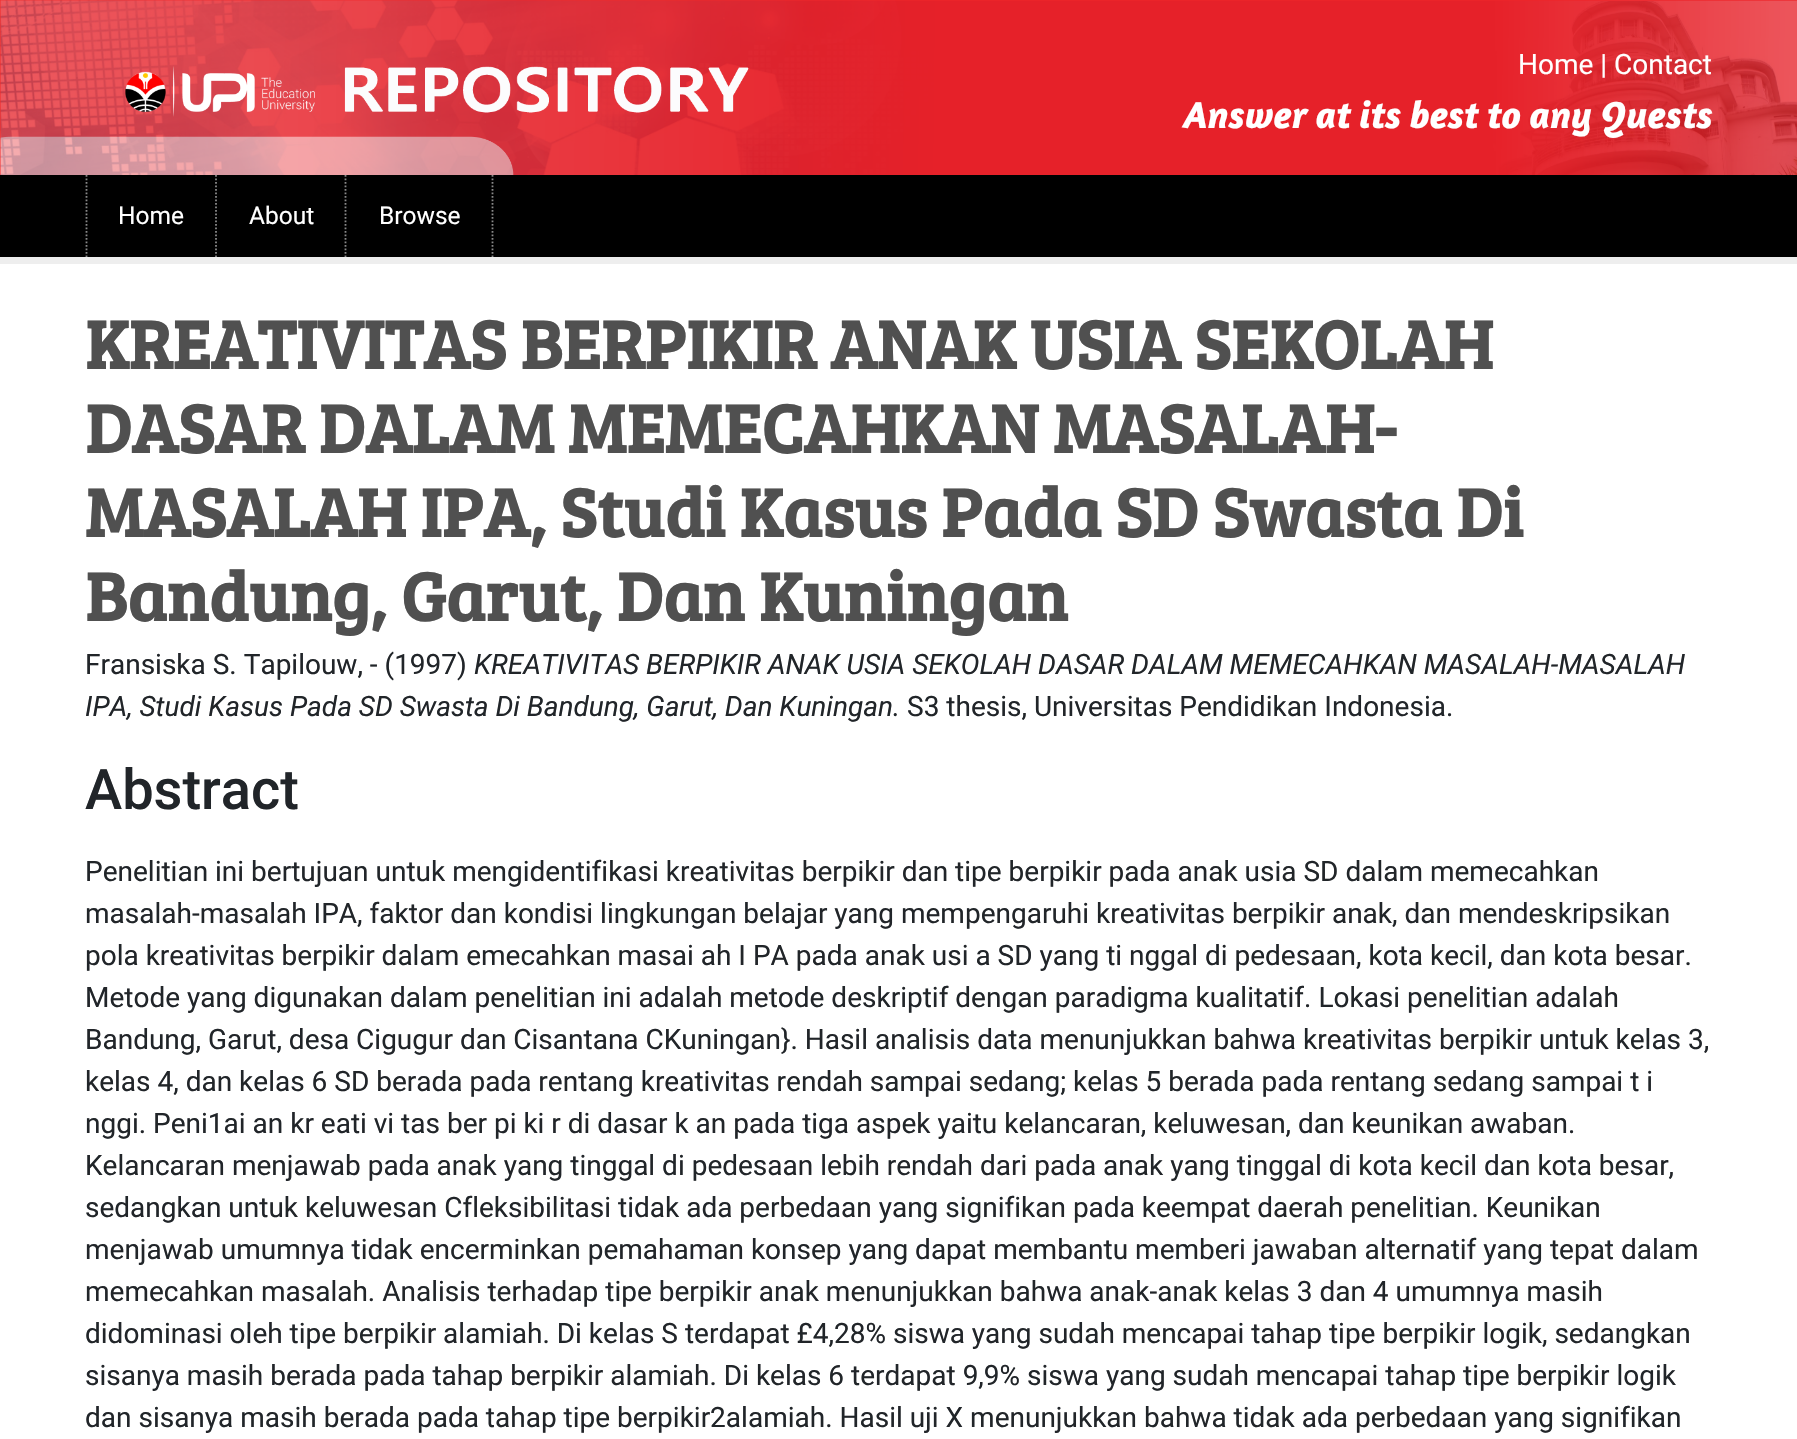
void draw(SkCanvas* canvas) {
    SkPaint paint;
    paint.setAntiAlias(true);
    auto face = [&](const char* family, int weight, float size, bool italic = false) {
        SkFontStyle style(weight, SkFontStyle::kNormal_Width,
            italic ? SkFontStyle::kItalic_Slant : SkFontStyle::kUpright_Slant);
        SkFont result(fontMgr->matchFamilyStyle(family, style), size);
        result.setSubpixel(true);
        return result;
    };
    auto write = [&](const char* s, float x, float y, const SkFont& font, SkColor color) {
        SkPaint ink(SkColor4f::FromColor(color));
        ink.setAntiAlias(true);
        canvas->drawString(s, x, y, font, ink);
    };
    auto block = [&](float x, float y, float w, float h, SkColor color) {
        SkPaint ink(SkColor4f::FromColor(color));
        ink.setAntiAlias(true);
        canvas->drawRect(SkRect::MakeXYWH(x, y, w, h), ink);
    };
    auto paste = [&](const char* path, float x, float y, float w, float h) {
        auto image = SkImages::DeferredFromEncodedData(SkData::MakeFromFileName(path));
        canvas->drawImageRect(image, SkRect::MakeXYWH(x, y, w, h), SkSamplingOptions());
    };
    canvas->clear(SK_ColorWHITE);
    block(0, 0, 1797, 175, SkColorSetRGB(243, 42, 41));
    paste("pic1.png", 0, 0, 1797, 175);
    paste("pic2.png", 125, 66, 624, 51);
    auto kFont1 = face("Roboto", 400, 28);
    write("Home | Contact", 1518, 74, kFont1, SK_ColorWHITE);
    auto kFont2 = face("Amaranth", 700, 38.5f, true);
    write("Answer at its best to any Quests", 1184, 128, kFont2, SK_ColorWHITE);
    block(0, 175, 1797, 82, SK_ColorBLACK);
    paint.setStyle(SkPaint::kStroke_Style);
    paint.setStrokeWidth(1.8f);
    paint.setColor(SkColorSetRGB(136, 136, 136));
    paint.setPathEffect(SkDashPathEffect::Make({{1.75f, 1.75f}}, 0));
    canvas->drawPath(SkPathBuilder().moveTo(86.5f, 175).lineTo(86.5f, 257).detach(), paint);
    paint.setPathEffect(nullptr);
    auto kFont3 = face("Roboto", 400, 24.5f);
    write("Home", 118, 224, kFont3, SK_ColorWHITE);
    paint.setPathEffect(SkDashPathEffect::Make({{1.75f, 1.75f}}, 0));
    canvas->drawPath(SkPathBuilder().moveTo(216, 175).lineTo(216, 257).detach(), paint);
    paint.setPathEffect(nullptr);
    write("About", 249, 224, kFont3, SK_ColorWHITE);
    paint.setPathEffect(SkDashPathEffect::Make({{1.75f, 1.75f}}, 0));
    canvas->drawPath(SkPathBuilder().moveTo(345.5f, 175).lineTo(345.5f, 257).detach(), paint);
    paint.setPathEffect(nullptr);
    write("Browse", 379, 224, kFont3, SK_ColorWHITE);
    paint.setPathEffect(SkDashPathEffect::Make({{1.75f, 1.75f}}, 0));
    canvas->drawPath(SkPathBuilder().moveTo(492.5f, 175).lineTo(492.5f, 257).detach(), paint);
    paint.setPathEffect(nullptr);
    block(0, 257, 1797, 7, SkColorSetRGB(238, 238, 238));
    auto kFont4 = face("Bree Serif", 700, 70);
    write("KREATIVITAS BERPIKIR ANAK USIA SEKOLAH", 85, 369, kFont4, SkColorSetRGB(80, 80, 80));
    write("DASAR DALAM MEMECAHKAN MASALAH-", 85, 453, kFont4, SkColorSetRGB(80, 80, 80));
    write("MASALAH IPA, Studi Kasus Pada SD Swasta Di", 85, 537, kFont4, SkColorSetRGB(80, 80, 80));
    write("Bandung, Garut, Dan Kuningan", 85, 621, kFont4, SkColorSetRGB(80, 80, 80));
    write("Fransiska S. Tapilouw, - (1997)", 85, 674, kFont1, SkColorSetRGB(33, 37, 41));
    auto kFont5 = face("Roboto", 400, 28, true);
    write("KREATIVITAS BERPIKIR ANAK USIA SEKOLAH DASAR DALAM MEMECAHKAN MASALAH-MASALAH", 474, 674, kFont5, SkColorSetRGB(33, 37, 41));
    write("IPA, Studi Kasus Pada SD Swasta Di Bandung, Garut, Dan Kuningan.", 85, 716, kFont5, SkColorSetRGB(33, 37, 41));
    write("S3 thesis, Universitas Pendidikan Indonesia.", 907, 716, kFont1, SkColorSetRGB(33, 37, 41));
    auto kFont6 = face("Roboto", 500, 56);
    write("Abstract", 85, 809, kFont6, SkColorSetRGB(33, 37, 41));
    write("Penelitian ini bertujuan untuk mengidentifikasi kreativitas berpikir dan tipe berpikir pada anak usia SD dalam memecahkan", 85, 881, kFont1, SkColorSetRGB(33, 37, 41));
    write("masalah-masalah IPA, faktor dan kondisi lingkungan belajar yang mempengaruhi kreativitas berpikir anak, dan mendeskripsikan", 85, 923, kFont1, SkColorSetRGB(33, 37, 41));
    write("pola kreativitas berpikir dalam emecahkan masai ah I PA pada anak usi a SD yang ti nggal di pedesaan, kota kecil, dan kota besar.", 85, 965, kFont1, SkColorSetRGB(33, 37, 41));
    write("Metode yang digunakan dalam penelitian ini adalah metode deskriptif dengan paradigma kualitatif. Lokasi penelitian adalah", 85, 1007, kFont1, SkColorSetRGB(33, 37, 41));
    write("Bandung, Garut, desa Cigugur dan Cisantana CKuningan}. Hasil analisis data menunjukkan bahwa kreativitas berpikir untuk kelas 3,", 85, 1049, kFont1, SkColorSetRGB(33, 37, 41));
    write("kelas 4, dan kelas 6 SD berada pada rentang kreativitas rendah sampai sedang; kelas 5 berada pada rentang sedang sampai t i", 85, 1091, kFont1, SkColorSetRGB(33, 37, 41));
    write("nggi. Peni1ai an kr eati vi tas ber pi ki r di dasar k an pada tiga aspek yaitu kelancaran, keluwesan, dan keunikan awaban.", 85, 1133, kFont1, SkColorSetRGB(33, 37, 41));
    write("Kelancaran menjawab pada anak yang tinggal di pedesaan lebih rendah dari pada anak yang tinggal di kota kecil dan kota besar,", 85, 1175, kFont1, SkColorSetRGB(33, 37, 41));
    write("sedangkan untuk keluwesan Cfleksibilitasi tidak ada perbedaan yang signifikan pada keempat daerah penelitian. Keunikan", 85, 1217, kFont1, SkColorSetRGB(33, 37, 41));
    write("menjawab umumnya tidak encerminkan pemahaman konsep yang dapat membantu memberi jawaban alternatif yang tepat dalam", 85, 1259, kFont1, SkColorSetRGB(33, 37, 41));
    write("memecahkan masalah. Analisis terhadap tipe berpikir anak menunjukkan bahwa anak-anak kelas 3 dan 4 umumnya masih", 85, 1301, kFont1, SkColorSetRGB(33, 37, 41));
    write("didominasi oleh tipe berpikir alamiah. Di kelas S terdapat £4,28% siswa yang sudah mencapai tahap tipe berpikir logik, sedangkan", 85, 1343, kFont1, SkColorSetRGB(33, 37, 41));
    write("sisanya masih berada pada tahap berpikir alamiah. Di kelas 6 terdapat 9,9% siswa yang sudah mencapai tahap tipe berpikir logik", 85, 1385, kFont1, SkColorSetRGB(33, 37, 41));
    write("dan sisanya masih berada pada tahap tipe berpikir2alamiah. Hasil uji X menunjukkan bahwa tidak ada perbedaan yang signifikan", 85, 1427, kFont1, SkColorSetRGB(33, 37, 41));
}
